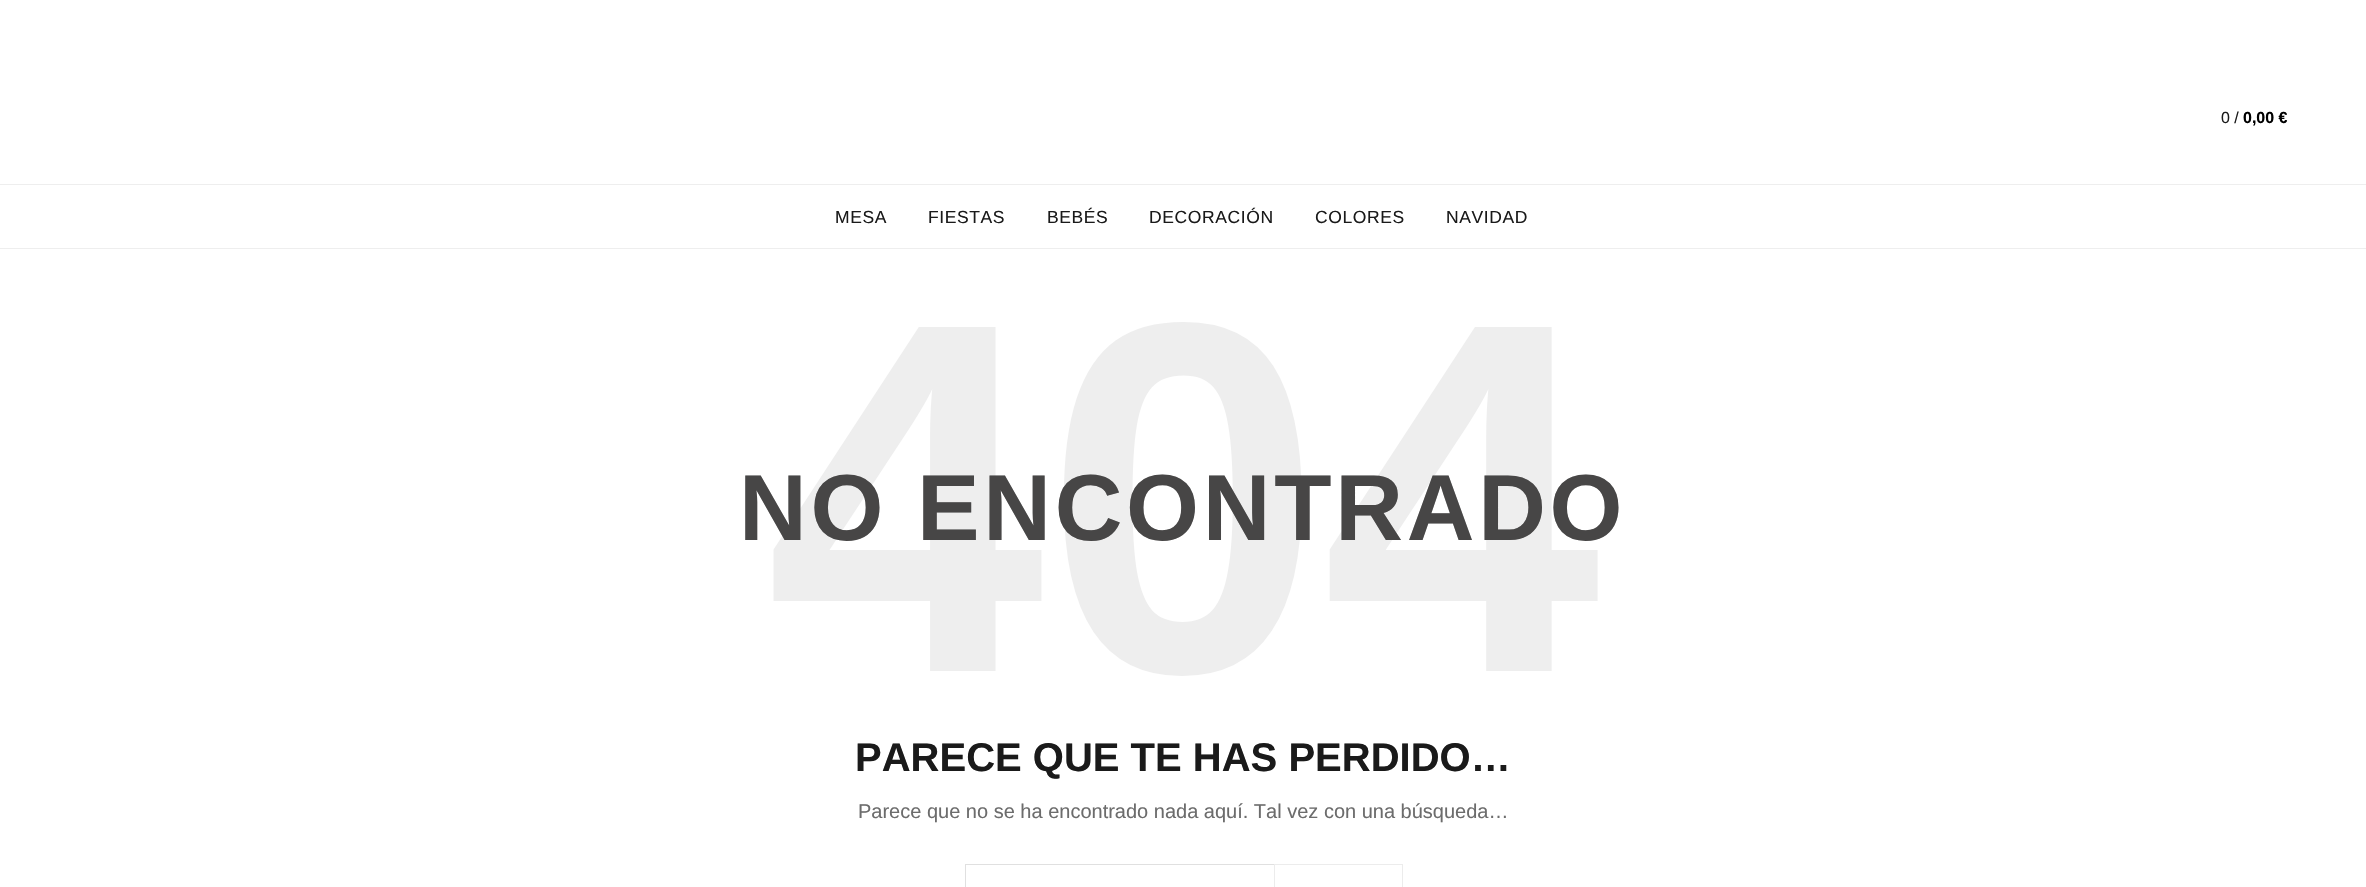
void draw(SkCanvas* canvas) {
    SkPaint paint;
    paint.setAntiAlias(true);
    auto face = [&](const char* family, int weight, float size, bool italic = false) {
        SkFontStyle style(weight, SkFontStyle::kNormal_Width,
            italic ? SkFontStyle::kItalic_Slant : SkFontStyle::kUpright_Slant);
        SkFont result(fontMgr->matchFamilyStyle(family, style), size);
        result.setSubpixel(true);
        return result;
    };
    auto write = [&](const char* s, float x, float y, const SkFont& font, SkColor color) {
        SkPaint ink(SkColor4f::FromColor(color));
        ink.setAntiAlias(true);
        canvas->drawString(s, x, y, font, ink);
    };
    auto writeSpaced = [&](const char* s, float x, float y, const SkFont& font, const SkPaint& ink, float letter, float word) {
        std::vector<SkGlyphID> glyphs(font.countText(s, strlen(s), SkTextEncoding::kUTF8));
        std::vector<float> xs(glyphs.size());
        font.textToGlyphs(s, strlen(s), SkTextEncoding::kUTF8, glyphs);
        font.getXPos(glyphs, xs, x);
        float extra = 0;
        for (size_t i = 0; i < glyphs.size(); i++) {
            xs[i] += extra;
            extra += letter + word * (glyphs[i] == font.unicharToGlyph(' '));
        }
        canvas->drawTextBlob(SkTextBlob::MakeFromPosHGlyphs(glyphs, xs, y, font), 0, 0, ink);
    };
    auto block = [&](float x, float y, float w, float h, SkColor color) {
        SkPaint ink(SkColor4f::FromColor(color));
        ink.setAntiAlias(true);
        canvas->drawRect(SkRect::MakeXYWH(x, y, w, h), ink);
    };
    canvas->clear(SK_ColorWHITE);
    auto kFont1 = face("Liberation Sans", 400, 16);
    write("0 /", 2221, 123, kFont1, SkColorSetRGB(26, 26, 26));
    auto kFont2 = face("Liberation Sans", 700, 16);
    write("0,00 €", 2243, 123, kFont2, SK_ColorBLACK);
    block(0, 184, 2366, 1, SkColorSetRGB(238, 238, 238));
    block(0, 248, 2366, 1, SkColorSetRGB(238, 238, 238));
    auto kFont3 = face("Liberation Sans", 400, 17.5f);
    paint.setColor(SkColorSetRGB(26, 26, 26));
    writeSpaced("MESA", 835, 223, kFont3, paint, 0.6f, 0);
    writeSpaced("FIESTAS", 928, 223, kFont3, paint, 0.6f, 0);
    writeSpaced("BEBÉS", 1047, 223, kFont3, paint, 0.6f, 0);
    writeSpaced("DECORACIÓN", 1149, 223, kFont3, paint, 0.6f, 0);
    writeSpaced("COLORES", 1315, 223, kFont3, paint, 0.6f, 0);
    writeSpaced("NAVIDAD", 1446, 223, kFont3, paint, 0.6f, 0);
    auto kFont4 = face("Liberation Sans", 700, 500);
    write("404", 766, 671, kFont4, SkColorSetRGB(238, 238, 238));
    auto kFont5 = face("Liberation Sans", 700, 93.75f);
    paint.setColor(SkColorSetRGB(71, 70, 70));
    writeSpaced("NO ENCONTRADO", 739, 540, kFont5, paint, 3.75f, 0);
    auto kFont6 = face("Liberation Sans", 700, 40);
    write("PARECE QUE TE HAS PERDIDO…", 855, 771, kFont6, SkColorSetRGB(26, 26, 26));
    auto kFont7 = face("Liberation Sans", 400, 20);
    write("Parece que no se ha encontrado nada aquí. Tal vez con una búsqueda…", 858, 818, kFont7, SkColorSetRGB(108, 108, 108));
    paint.setStyle(SkPaint::kStroke_Style);
    paint.setStrokeWidth(1);
    paint.setColor(SkColorSetRGB(224, 224, 224));
    canvas->drawRect(SkRect::MakeXYWH(965.5f, 864.5f, 437, 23), paint);
    paint.setColor(SkColorSetRGB(236, 236, 236));
    canvas->drawRect(SkRect::MakeXYWH(1274.5f, 864.5f, 128, 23), paint);
}
